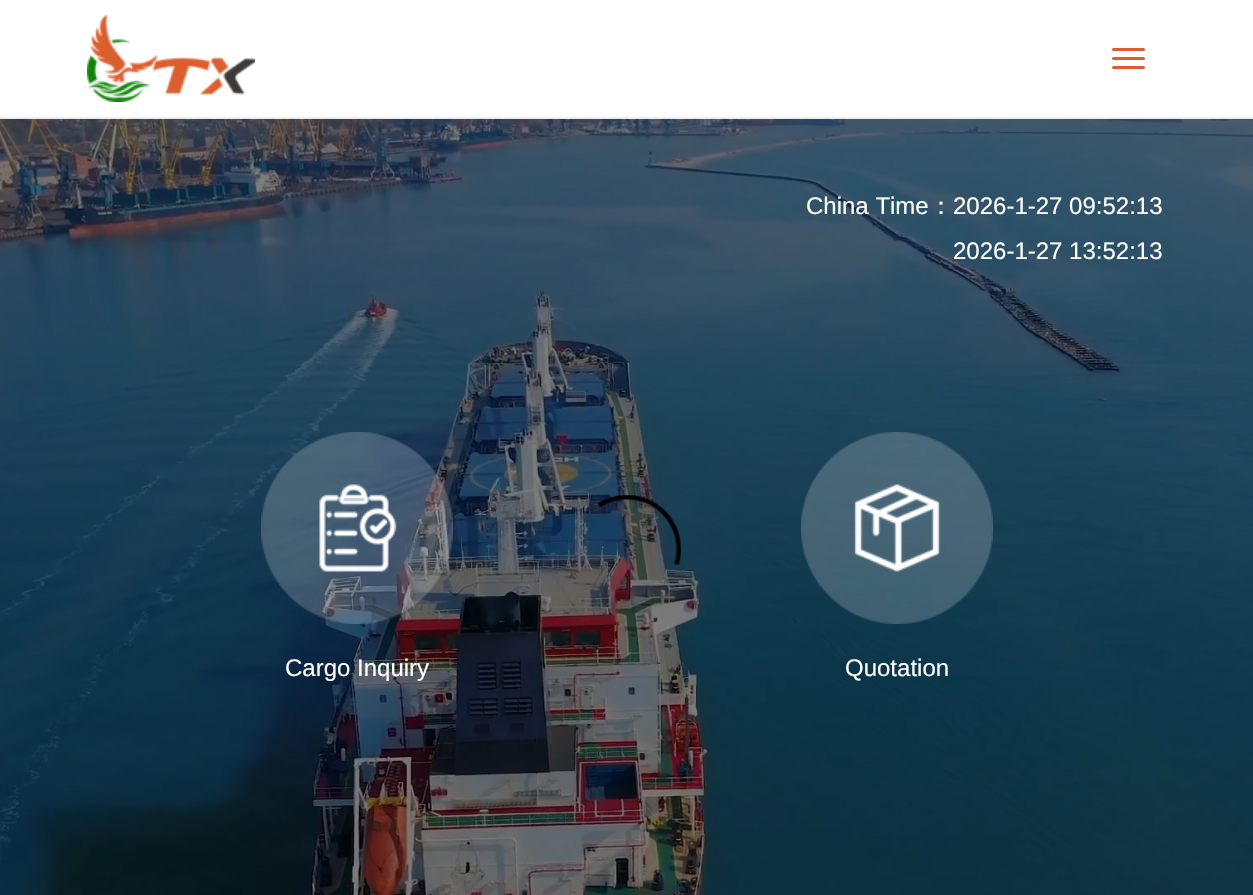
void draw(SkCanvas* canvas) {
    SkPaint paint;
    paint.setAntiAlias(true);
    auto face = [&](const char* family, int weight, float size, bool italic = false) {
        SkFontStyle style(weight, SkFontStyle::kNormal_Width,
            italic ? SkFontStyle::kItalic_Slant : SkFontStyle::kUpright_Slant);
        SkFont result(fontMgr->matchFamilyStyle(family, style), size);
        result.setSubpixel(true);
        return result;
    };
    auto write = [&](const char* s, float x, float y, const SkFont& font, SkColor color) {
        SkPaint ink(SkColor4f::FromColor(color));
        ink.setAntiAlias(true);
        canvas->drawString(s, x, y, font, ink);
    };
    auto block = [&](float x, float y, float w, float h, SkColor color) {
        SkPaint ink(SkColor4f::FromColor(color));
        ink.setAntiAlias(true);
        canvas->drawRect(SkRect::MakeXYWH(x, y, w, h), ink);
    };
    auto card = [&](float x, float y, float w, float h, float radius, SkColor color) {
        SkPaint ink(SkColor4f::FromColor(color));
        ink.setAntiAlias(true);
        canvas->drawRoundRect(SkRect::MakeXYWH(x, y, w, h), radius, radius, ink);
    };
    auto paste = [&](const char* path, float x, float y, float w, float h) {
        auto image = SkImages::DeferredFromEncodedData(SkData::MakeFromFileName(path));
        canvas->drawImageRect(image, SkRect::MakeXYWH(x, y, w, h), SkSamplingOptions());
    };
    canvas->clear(SK_ColorWHITE);
    block(0, 117, 1253, 2, SkColorSetRGB(238, 238, 238));
    paste("pic1.png", 87, 15, 168, 87);
    card(1112, 48, 33, 3, 1.5f, SkColorSetRGB(219, 94, 46));
    card(1112, 57, 33, 3, 1.5f, SkColorSetRGB(219, 94, 46));
    card(1112, 66, 33, 3, 1.5f, SkColorSetRGB(219, 94, 46));
    paste("pic2.png", 0, 119, 1253, 776);
    auto kFont1 = face("Liberation Sans", 400, 24);
    write("China Time", 806, 214, kFont1, SK_ColorWHITE);
    auto kFont2 = face("WenQuanYi Zen Hei", 500, 24);
    write("：", 929, 214, kFont2, SK_ColorWHITE);
    write("2026-1-27 09:52:13", 953, 214, kFont1, SK_ColorWHITE);
    write("2026-1-27 13:52:13", 953, 259, kFont1, SK_ColorWHITE);
    paste("pic3.png", 261, 432, 192, 192);
    write("Cargo Inquiry", 285, 676, kFont1, SK_ColorWHITE);
    paste("pic4.png", 801, 432, 192, 192);
    write("Quotation", 845, 676, kFont1, SK_ColorWHITE);
}
